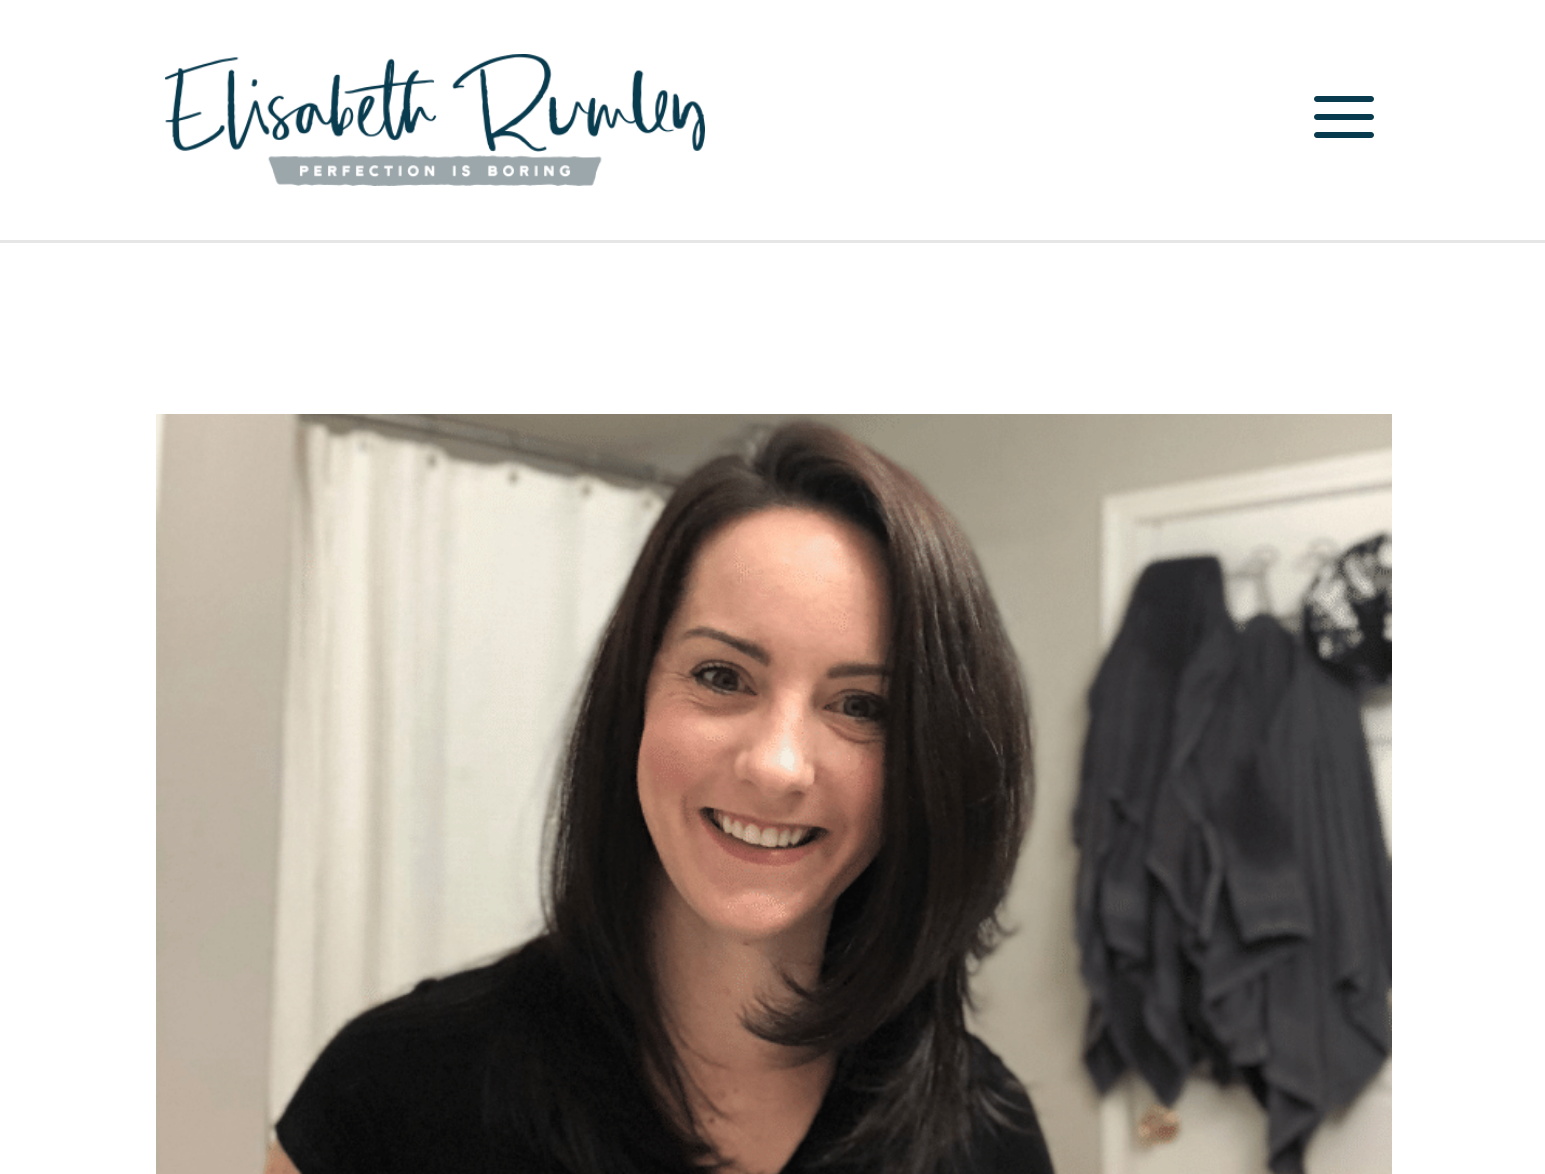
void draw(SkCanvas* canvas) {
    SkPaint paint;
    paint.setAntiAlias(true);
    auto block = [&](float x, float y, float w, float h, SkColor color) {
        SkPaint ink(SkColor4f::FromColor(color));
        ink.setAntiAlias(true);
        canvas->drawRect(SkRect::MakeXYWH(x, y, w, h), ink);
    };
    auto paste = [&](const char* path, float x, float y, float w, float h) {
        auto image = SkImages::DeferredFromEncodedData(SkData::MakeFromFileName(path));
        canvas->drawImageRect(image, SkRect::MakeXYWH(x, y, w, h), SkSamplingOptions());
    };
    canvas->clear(SK_ColorWHITE);
    block(0, 240, 1545, 3, SkColorSetRGB(230, 230, 230));
    paste("pic1.png", 165, 54, 540, 132);
    paste("pic2.png", 1314, 96, 60, 42);
    paste("pic3.png", 156, 414, 1236, 760);
}
